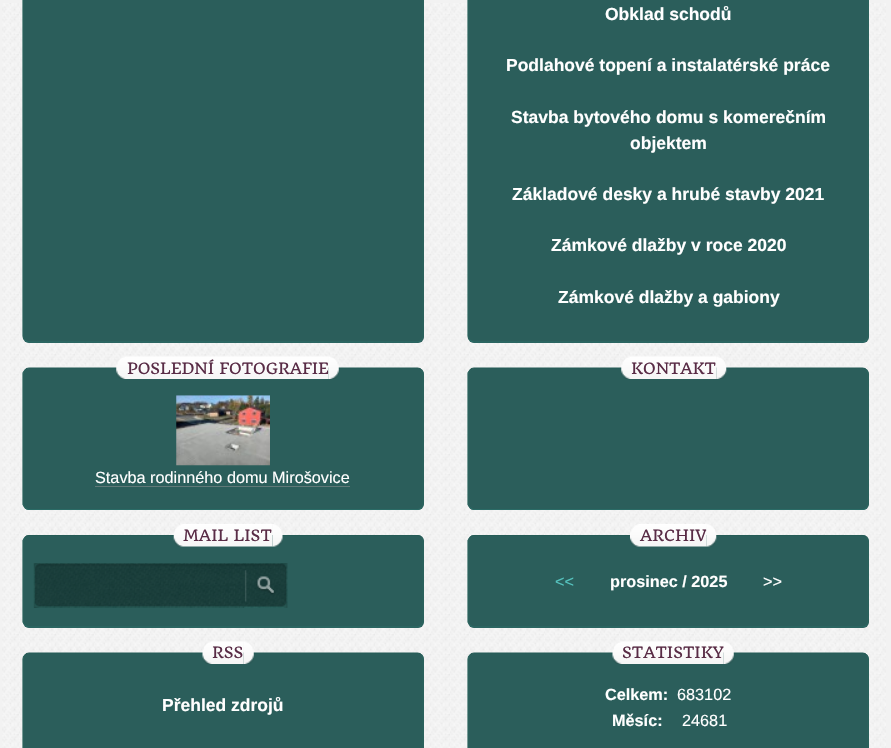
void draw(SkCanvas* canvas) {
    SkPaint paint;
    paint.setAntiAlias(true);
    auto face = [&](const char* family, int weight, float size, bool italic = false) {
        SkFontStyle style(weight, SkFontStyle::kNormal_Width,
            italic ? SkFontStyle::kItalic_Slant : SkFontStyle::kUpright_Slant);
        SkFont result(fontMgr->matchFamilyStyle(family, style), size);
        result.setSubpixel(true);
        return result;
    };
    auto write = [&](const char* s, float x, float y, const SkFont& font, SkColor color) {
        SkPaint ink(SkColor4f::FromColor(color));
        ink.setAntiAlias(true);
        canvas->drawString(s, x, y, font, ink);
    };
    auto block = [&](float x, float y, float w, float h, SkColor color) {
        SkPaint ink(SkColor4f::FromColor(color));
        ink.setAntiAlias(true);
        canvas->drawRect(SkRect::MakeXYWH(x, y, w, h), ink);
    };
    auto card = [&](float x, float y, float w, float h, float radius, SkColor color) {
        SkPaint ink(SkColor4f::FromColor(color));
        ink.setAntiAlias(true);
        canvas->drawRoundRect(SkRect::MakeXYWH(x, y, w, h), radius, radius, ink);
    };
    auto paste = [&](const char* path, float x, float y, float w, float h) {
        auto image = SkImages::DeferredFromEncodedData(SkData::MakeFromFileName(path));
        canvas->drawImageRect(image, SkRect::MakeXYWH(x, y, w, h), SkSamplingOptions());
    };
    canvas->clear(SkColorSetRGB(242, 242, 242));
    paste("pic1.png", 2, 3, 884, 745);
    card(23, -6, 401, 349, 6, SkColorSetRGB(43, 94, 91));
    paint.setStyle(SkPaint::kStroke_Style);
    paint.setStrokeWidth(1.2f);
    paint.setColor(SkColorSetRGB(42, 99, 93));
    canvas->drawPath(SkPathBuilder().moveTo(421.5f, -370).cubicTo(422.5f, -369, 423, -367.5f, 423, -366).lineTo(423, 336).cubicTo(423, 337.5f, 422.5f, 339, 421.5f, 340).detach(), paint);
    paint.setColor(SkColorSetRGB(42, 107, 102));
    canvas->drawPath(SkPathBuilder().moveTo(421.5f, 340).cubicTo(420.5f, 341.5f, 419, 342, 417.5f, 342).lineTo(29, 342).cubicTo(27.5f, 342, 26, 341.5f, 25, 340).detach(), paint);
    paint.setColor(SkColorSetRGB(42, 99, 93));
    canvas->drawPath(SkPathBuilder().moveTo(25, 340).cubicTo(23.5f, 339, 23, 337.5f, 23, 336).lineTo(23, -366).cubicTo(23, -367.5f, 23.5f, -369, 25, -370).detach(), paint);
    card(468, -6, 401, 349, 6, SkColorSetRGB(43, 94, 91));
    canvas->drawPath(SkPathBuilder().moveTo(866.5f, -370).cubicTo(867.5f, -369, 868, -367.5f, 868, -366).lineTo(868, 336).cubicTo(868, 337.5f, 867.5f, 339, 866.5f, 340).detach(), paint);
    paint.setColor(SkColorSetRGB(42, 107, 102));
    canvas->drawPath(SkPathBuilder().moveTo(866.5f, 340).cubicTo(865.5f, 341.5f, 864, 342, 862.5f, 342).lineTo(474, 342).cubicTo(472.5f, 342, 471, 341.5f, 470, 340).detach(), paint);
    paint.setColor(SkColorSetRGB(42, 99, 93));
    canvas->drawPath(SkPathBuilder().moveTo(470, 340).cubicTo(468.5f, 339, 468, 337.5f, 468, 336).lineTo(468, -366).cubicTo(468, -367.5f, 468.5f, -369, 470, -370).detach(), paint);
    auto kFont1 = face("Liberation Sans", 700, 17.5f);
    write("Obklad schodů", 605, 20, kFont1, SK_ColorWHITE);
    write("Podlahové topení a instalatérské práce", 506, 71, kFont1, SK_ColorWHITE);
    write("Stavba bytového domu s komerečním", 511, 123, kFont1, SK_ColorWHITE);
    write("objektem", 630, 149, kFont1, SK_ColorWHITE);
    write("Základové desky a hrubé stavby 2021", 512, 200, kFont1, SK_ColorWHITE);
    write("Zámkové dlažby v roce 2020", 551, 251, kFont1, SK_ColorWHITE);
    write("Zámkové dlažby a gabiony", 558, 303, kFont1, SK_ColorWHITE);
    card(23, 368, 401, 142, 6, SkColorSetRGB(43, 94, 91));
    paint.setColor(SkColorSetRGB(37, 91, 86));
    canvas->drawPath(SkPathBuilder().moveTo(25, 370).cubicTo(26, 368.5f, 27.5f, 368, 29, 368).lineTo(417.5f, 368).cubicTo(419, 368, 420.5f, 368.5f, 421.5f, 370).detach(), paint);
    paint.setColor(SkColorSetRGB(42, 99, 93));
    canvas->drawPath(SkPathBuilder().moveTo(421.5f, 370).lineTo(423, 373).lineTo(423, 504.5f).lineTo(421.5f, 507.5f).detach(), paint);
    paint.setColor(SkColorSetRGB(42, 107, 102));
    canvas->drawPath(SkPathBuilder().moveTo(421.5f, 507.5f).cubicTo(420.5f, 509, 419, 509.5f, 417.5f, 509.5f).lineTo(29, 509.5f).cubicTo(27.5f, 509.5f, 26, 509, 25, 507.5f).detach(), paint);
    paint.setColor(SkColorSetRGB(42, 99, 93));
    canvas->drawPath(SkPathBuilder().moveTo(25, 507.5f).lineTo(23, 504.5f).lineTo(23, 373).lineTo(25, 370).detach(), paint);
    paste("pic2.png", 116, 356, 213, 23);
    auto kFont2 = face("Quando", 400, 17.5f);
    write("POSLEDNÍ FOTOGRAFIE", 127, 374, kFont2, SkColorSetRGB(89, 44, 70));
    paste("pic3.png", 328, 356, 11, 23);
    paste("pic4.png", 176, 395, 94, 71);
    auto kFont3 = face("Liberation Sans", 400, 16.25f);
    write("Stavba rodinného domu Mirošovice", 95, 483, kFont3, SK_ColorWHITE);
    block(95, 486, 255, 1, SkColorSetRGB(97, 122, 121));
    card(468, 368, 401, 142, 6, SkColorSetRGB(43, 94, 91));
    paint.setColor(SkColorSetRGB(37, 91, 86));
    canvas->drawPath(SkPathBuilder().moveTo(470, 370).cubicTo(471, 368.5f, 472.5f, 368, 474, 368).lineTo(862.5f, 368).cubicTo(864, 368, 865.5f, 368.5f, 866.5f, 370).detach(), paint);
    paint.setColor(SkColorSetRGB(42, 99, 93));
    canvas->drawPath(SkPathBuilder().moveTo(866.5f, 370).lineTo(868, 373).lineTo(868, 504.5f).lineTo(866.5f, 507.5f).detach(), paint);
    paint.setColor(SkColorSetRGB(42, 107, 102));
    canvas->drawPath(SkPathBuilder().moveTo(866.5f, 507.5f).cubicTo(865.5f, 509, 864, 509.5f, 862.5f, 509.5f).lineTo(474, 509.5f).cubicTo(472.5f, 509.5f, 471, 509, 470, 507.5f).detach(), paint);
    paint.setColor(SkColorSetRGB(42, 99, 93));
    canvas->drawPath(SkPathBuilder().moveTo(470, 507.5f).lineTo(468, 504.5f).lineTo(468, 373).lineTo(470, 370).detach(), paint);
    paste("pic5.png", 621, 356, 96, 23);
    write("KONTAKT", 631, 374, kFont2, SkColorSetRGB(89, 44, 70));
    paste("pic6.png", 716, 356, 11, 23);
    card(23, 535, 401, 93, 6, SkColorSetRGB(43, 94, 91));
    paint.setColor(SkColorSetRGB(37, 91, 86));
    canvas->drawPath(SkPathBuilder().moveTo(25, 537.5f).cubicTo(26, 536, 27.5f, 535.5f, 29, 535.5f).lineTo(417.5f, 535.5f).cubicTo(419, 535.5f, 420.5f, 536, 421.5f, 537.5f).detach(), paint);
    paint.setColor(SkColorSetRGB(42, 99, 93));
    canvas->drawPath(SkPathBuilder().moveTo(421.5f, 537.5f).lineTo(423, 540.5f).lineTo(423, 622).lineTo(421.5f, 625).detach(), paint);
    paint.setColor(SkColorSetRGB(42, 107, 102));
    canvas->drawPath(SkPathBuilder().moveTo(421.5f, 625).cubicTo(420.5f, 626.5f, 419, 627, 417.5f, 627).lineTo(29, 627).cubicTo(27.5f, 627, 26, 626.5f, 25, 625).detach(), paint);
    paint.setColor(SkColorSetRGB(42, 99, 93));
    canvas->drawPath(SkPathBuilder().moveTo(25, 625).lineTo(23, 622).lineTo(23, 540.5f).lineTo(25, 537.5f).detach(), paint);
    paste("pic7.png", 173, 524, 100, 23);
    write("MAIL LIST", 183, 541, kFont2, SkColorSetRGB(89, 44, 70));
    paste("pic8.png", 272, 524, 11, 23);
    block(34, 563, 210, 45, SkColorSetRGB(27, 63, 60));
    paste("pic9.png", 33, 563, 211, 45);
    paste("pic10.png", 244, 563, 44, 45);
    card(468, 535, 401, 93, 6, SkColorSetRGB(43, 94, 91));
    paint.setColor(SkColorSetRGB(37, 91, 86));
    canvas->drawPath(SkPathBuilder().moveTo(470, 537.5f).cubicTo(471, 536, 472.5f, 535.5f, 474, 535.5f).lineTo(862.5f, 535.5f).cubicTo(864, 535.5f, 865.5f, 536, 866.5f, 537.5f).detach(), paint);
    paint.setColor(SkColorSetRGB(42, 99, 93));
    canvas->drawPath(SkPathBuilder().moveTo(866.5f, 537.5f).lineTo(868, 540.5f).lineTo(868, 622).lineTo(866.5f, 625).detach(), paint);
    paint.setColor(SkColorSetRGB(42, 107, 102));
    canvas->drawPath(SkPathBuilder().moveTo(866.5f, 625).cubicTo(865.5f, 626.5f, 864, 627, 862.5f, 627).lineTo(474, 627).cubicTo(472.5f, 627, 471, 626.5f, 470, 625).detach(), paint);
    paint.setColor(SkColorSetRGB(42, 99, 93));
    canvas->drawPath(SkPathBuilder().moveTo(470, 625).lineTo(468, 622).lineTo(468, 540.5f).lineTo(470, 537.5f).detach(), paint);
    paste("pic11.png", 630, 524, 77, 23);
    write("ARCHIV", 640, 541, kFont2, SkColorSetRGB(89, 44, 70));
    paste("pic12.png", 706, 524, 11, 23);
    write("<<", 555, 587, kFont3, SkColorSetRGB(85, 195, 190));
    auto kFont4 = face("Liberation Sans", 700, 16.25f);
    write("prosinec / 2025", 610, 587, kFont4, SK_ColorWHITE);
    write(">>", 763, 587, kFont3, SK_ColorWHITE);
    card(23, 653, 401, 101, 6, SkColorSetRGB(43, 94, 91));
    paint.setColor(SkColorSetRGB(37, 91, 86));
    canvas->drawPath(SkPathBuilder().moveTo(25, 655).cubicTo(26, 653.5f, 27.5f, 653, 29, 653).lineTo(417.5f, 653).cubicTo(419, 653, 420.5f, 653.5f, 421.5f, 655).detach(), paint);
    paint.setColor(SkColorSetRGB(42, 99, 93));
    canvas->drawPath(SkPathBuilder().moveTo(421.5f, 655).cubicTo(422.5f, 656, 423, 657.5f, 423, 659).lineTo(423, 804).cubicTo(423, 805, 422.5f, 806.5f, 421.5f, 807.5f).detach(), paint);
    canvas->drawPath(SkPathBuilder().moveTo(25, 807.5f).cubicTo(23.5f, 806.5f, 23, 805, 23, 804).lineTo(23, 659).cubicTo(23, 657.5f, 23.5f, 656, 25, 655).detach(), paint);
    paste("pic13.png", 202, 641, 42, 23);
    write("RSS", 212, 658, kFont2, SkColorSetRGB(89, 44, 70));
    paste("pic14.png", 243, 641, 11, 23);
    write("Přehled zdrojů", 162, 711, kFont1, SK_ColorWHITE);
    card(468, 653, 401, 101, 6, SkColorSetRGB(43, 94, 91));
    paint.setColor(SkColorSetRGB(37, 91, 86));
    canvas->drawPath(SkPathBuilder().moveTo(470, 655).cubicTo(471, 653.5f, 472.5f, 653, 474, 653).lineTo(862.5f, 653).cubicTo(864, 653, 865.5f, 653.5f, 866.5f, 655).detach(), paint);
    paint.setColor(SkColorSetRGB(42, 99, 93));
    canvas->drawPath(SkPathBuilder().moveTo(866.5f, 655).cubicTo(867.5f, 656, 868, 657.5f, 868, 659).lineTo(868, 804).cubicTo(868, 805, 867.5f, 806.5f, 866.5f, 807.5f).detach(), paint);
    canvas->drawPath(SkPathBuilder().moveTo(470, 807.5f).cubicTo(468.5f, 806.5f, 468, 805, 468, 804).lineTo(468, 659).cubicTo(468, 657.5f, 468.5f, 656, 470, 655).detach(), paint);
    paste("pic15.png", 612, 641, 112, 23);
    write("STATISTIKY", 622, 658, kFont2, SkColorSetRGB(89, 44, 70));
    paste("pic16.png", 723, 641, 11, 23);
    write("Celkem:", 605, 700, kFont4, SK_ColorWHITE);
    write("683102", 677, 700, kFont3, SK_ColorWHITE);
    write("Měsíc:", 612, 726, kFont4, SK_ColorWHITE);
    write("24681", 682, 726, kFont3, SK_ColorWHITE);
}
